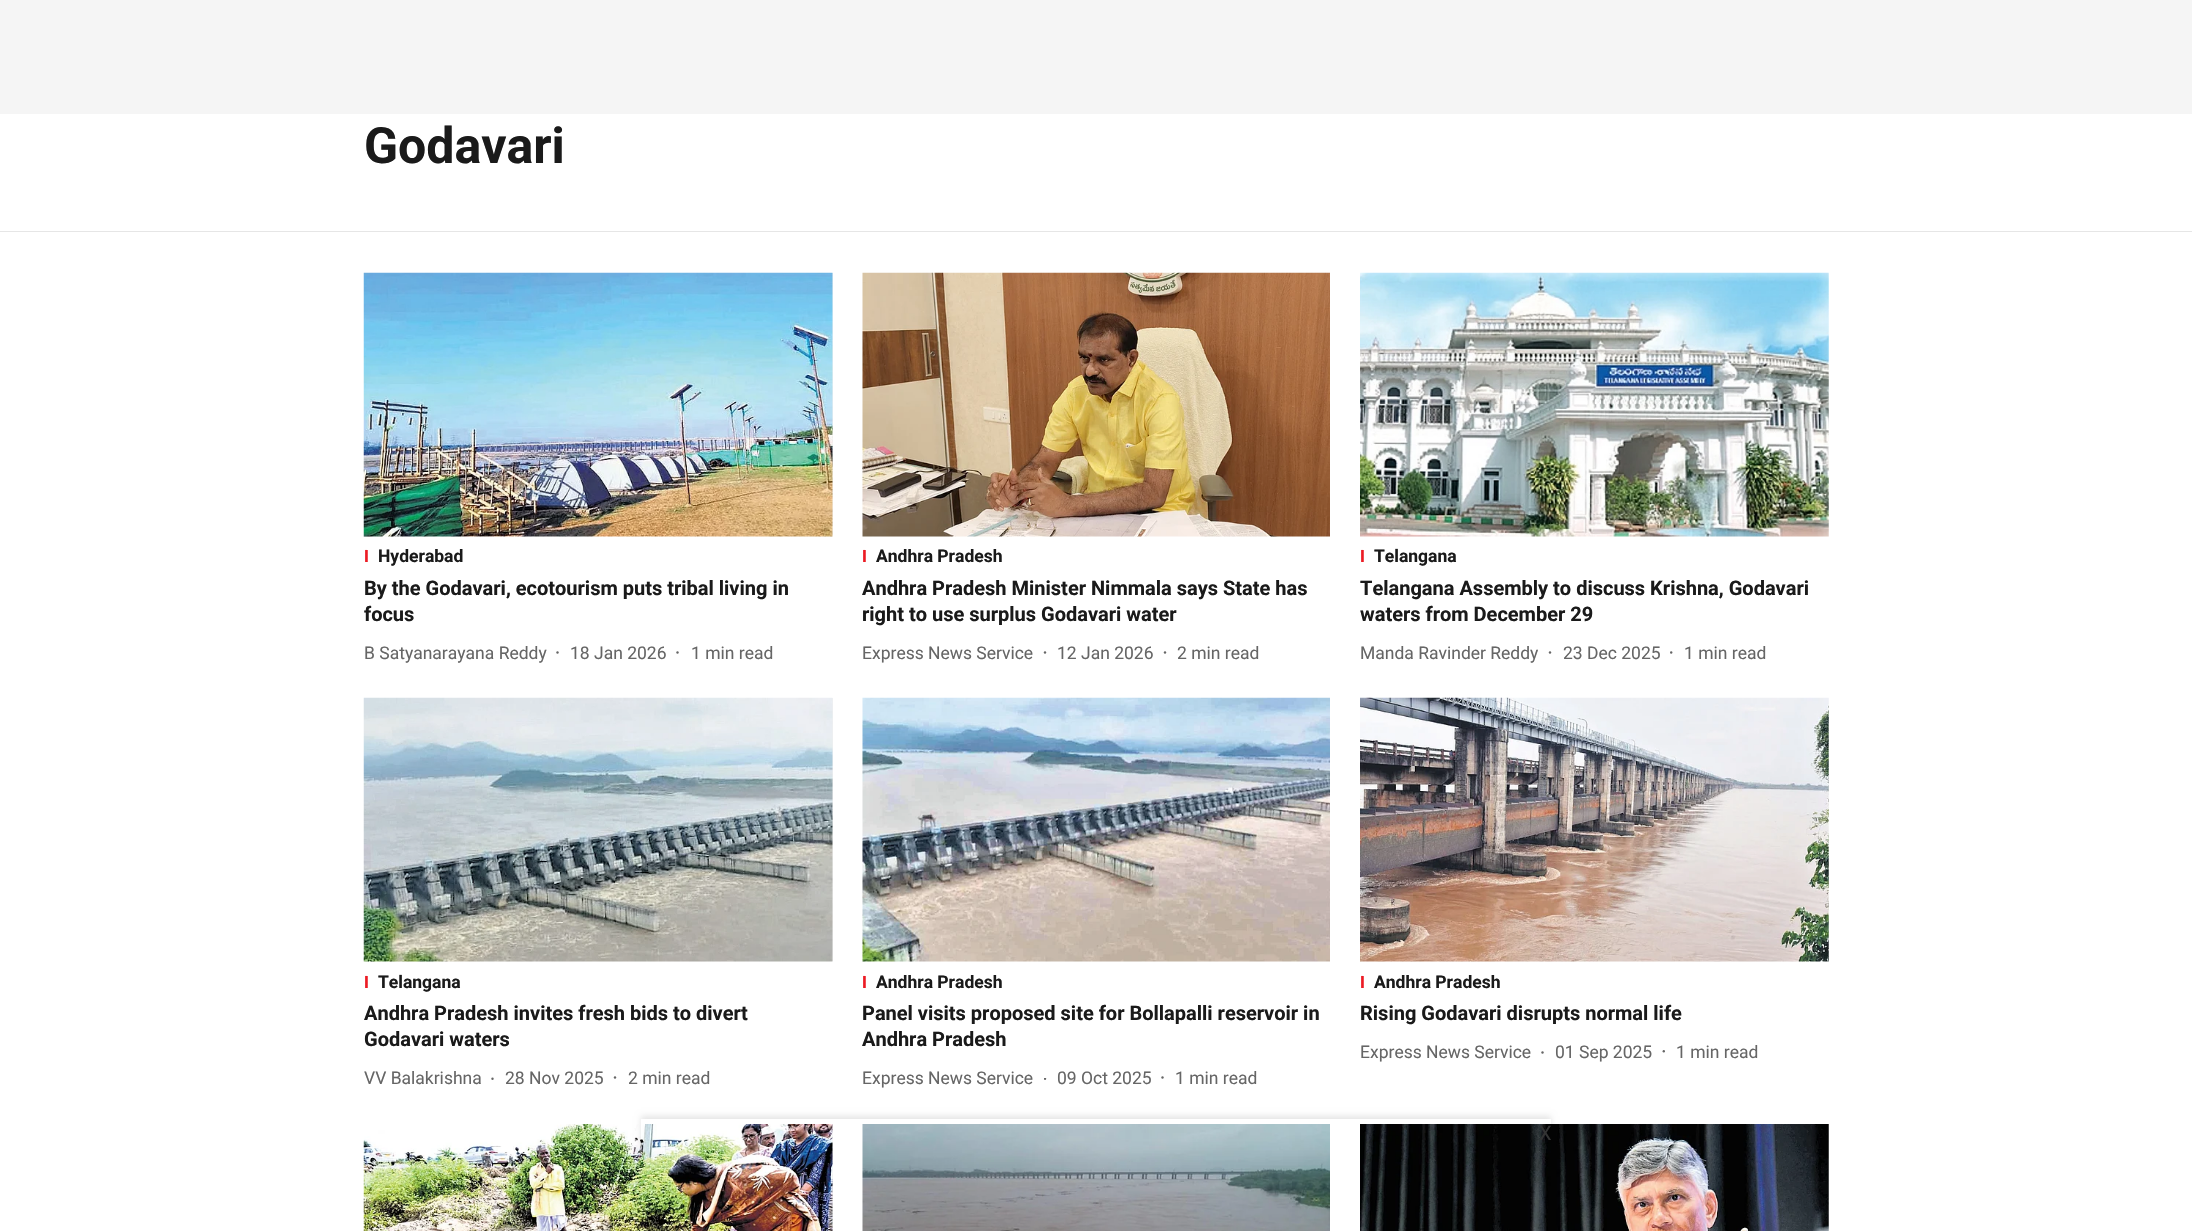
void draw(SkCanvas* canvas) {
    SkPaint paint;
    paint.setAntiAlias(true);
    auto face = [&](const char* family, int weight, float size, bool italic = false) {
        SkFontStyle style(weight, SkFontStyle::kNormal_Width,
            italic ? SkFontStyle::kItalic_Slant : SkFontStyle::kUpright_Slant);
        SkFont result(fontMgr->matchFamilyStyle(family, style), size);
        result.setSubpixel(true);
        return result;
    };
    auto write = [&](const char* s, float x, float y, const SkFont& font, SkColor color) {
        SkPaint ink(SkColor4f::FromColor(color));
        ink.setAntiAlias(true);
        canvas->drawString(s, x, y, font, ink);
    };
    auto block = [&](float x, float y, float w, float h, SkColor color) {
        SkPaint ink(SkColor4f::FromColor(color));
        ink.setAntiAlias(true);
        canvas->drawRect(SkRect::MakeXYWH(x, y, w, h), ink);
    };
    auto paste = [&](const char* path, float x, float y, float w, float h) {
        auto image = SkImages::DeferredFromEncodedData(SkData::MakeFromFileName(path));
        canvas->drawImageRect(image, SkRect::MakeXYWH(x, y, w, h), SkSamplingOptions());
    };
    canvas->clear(SkColorSetRGB(245, 245, 245));
    block(0, 114, 2192, 1117, SK_ColorWHITE);
    block(0, 231, 2192, 1, SkColorSetRGB(230, 230, 230));
    auto kFont1 = face("Roboto", 700, 50);
    write("Godavari", 364, 163, kFont1, SkColorSetRGB(26, 26, 26));
    block(832, 273, 1, 263, SkColorSetRGB(240, 240, 240));
    paste("pic1.png", 363, 272, 470, 265);
    auto kFont2 = face("Liberation Sans", 700, 17.5f);
    write("I", 364, 562, kFont2, SkColorSetRGB(236, 27, 36));
    auto kFont3 = face("Roboto", 700, 17.5f);
    write("Hyderabad", 378, 562, kFont3, SkColorSetRGB(26, 26, 26));
    auto kFont4 = face("Roboto", 700, 20);
    write("By the Godavari, ecotourism puts tribal living in", 364, 595, kFont4, SkColorSetRGB(26, 26, 26));
    write("focus", 364, 621, kFont4, SkColorSetRGB(26, 26, 26));
    auto kFont5 = face("Roboto", 400, 17.5f);
    write("B Satyanarayana Reddy", 364, 659, kFont5, SkColorSetRGB(102, 102, 102));
    paint.setColor(SkColorSetRGB(102, 102, 102));
    canvas->drawCircle(557.5f, 652.5f, 1.2f, paint);
    write("18 Jan 2026", 570, 659, kFont5, SkColorSetRGB(102, 102, 102));
    canvas->drawCircle(677.5f, 652.5f, 1.2f, paint);
    write("1 min read", 691, 659, kFont5, SkColorSetRGB(102, 102, 102));
    paste("pic2.png", 862, 272, 468, 265);
    write("I", 862, 562, kFont2, SkColorSetRGB(236, 27, 36));
    write("Andhra Pradesh", 876, 562, kFont3, SkColorSetRGB(26, 26, 26));
    write("Andhra Pradesh Minister Nimmala says State has", 862, 595, kFont4, SkColorSetRGB(26, 26, 26));
    write("right to use surplus Godavari water", 862, 621, kFont4, SkColorSetRGB(26, 26, 26));
    write("Express News Service", 862, 659, kFont5, SkColorSetRGB(102, 102, 102));
    canvas->drawCircle(1045, 652.5f, 1.2f, paint);
    write("12 Jan 2026", 1057, 659, kFont5, SkColorSetRGB(102, 102, 102));
    canvas->drawCircle(1165, 652.5f, 1.2f, paint);
    write("2 min read", 1177, 659, kFont5, SkColorSetRGB(102, 102, 102));
    paste("pic3.png", 1360, 272, 469, 265);
    canvas->save();
    canvas->clipRect(SkRect::MakeXYWH(1360, 546, 4, 20));
    write("I", 1360, 562, kFont2, SkColorSetRGB(236, 27, 36));
    canvas->restore();
    write("Telangana", 1374, 562, kFont3, SkColorSetRGB(26, 26, 26));
    write("Telangana Assembly to discuss Krishna, Godavari", 1360, 595, kFont4, SkColorSetRGB(26, 26, 26));
    write("waters from December 29", 1360, 621, kFont4, SkColorSetRGB(26, 26, 26));
    write("Manda Ravinder Reddy", 1360, 659, kFont5, SkColorSetRGB(102, 102, 102));
    canvas->drawCircle(1550, 652.5f, 1.2f, paint);
    write("23 Dec 2025", 1563, 659, kFont5, SkColorSetRGB(102, 102, 102));
    canvas->drawCircle(1671.2f, 652.5f, 1.2f, paint);
    write("1 min read", 1684, 659, kFont5, SkColorSetRGB(102, 102, 102));
    block(832, 698, 1, 263, SkColorSetRGB(240, 240, 240));
    paste("pic4.png", 363, 697, 470, 265);
    write("I", 364, 988, kFont2, SkColorSetRGB(236, 27, 36));
    write("Telangana", 378, 988, kFont3, SkColorSetRGB(26, 26, 26));
    write("Andhra Pradesh invites fresh bids to divert", 364, 1020, kFont4, SkColorSetRGB(26, 26, 26));
    write("Godavari waters", 364, 1046, kFont4, SkColorSetRGB(26, 26, 26));
    write("VV Balakrishna", 364, 1084, kFont5, SkColorSetRGB(102, 102, 102));
    canvas->drawCircle(492.5f, 1078.8f, 1.2f, paint);
    write("28 Nov 2025", 505, 1084, kFont5, SkColorSetRGB(102, 102, 102));
    canvas->drawCircle(615, 1077.5f, 1.2f, paint);
    write("2 min read", 628, 1084, kFont5, SkColorSetRGB(102, 102, 102));
    paste("pic5.png", 862, 697, 468, 265);
    write("I", 862, 988, kFont2, SkColorSetRGB(236, 27, 36));
    write("Andhra Pradesh", 876, 988, kFont3, SkColorSetRGB(26, 26, 26));
    write("Panel visits proposed site for Bollapalli reservoir in", 862, 1020, kFont4, SkColorSetRGB(26, 26, 26));
    write("Andhra Pradesh", 862, 1046, kFont4, SkColorSetRGB(26, 26, 26));
    write("Express News Service", 862, 1084, kFont5, SkColorSetRGB(102, 102, 102));
    canvas->save();
    canvas->clipRect(SkRect::MakeXYWH(1044, 1078, 4, 4));
    canvas->drawCircle(1045, 1078.8f, 1.2f, paint);
    canvas->restore();
    write("09 Oct 2025", 1057, 1084, kFont5, SkColorSetRGB(102, 102, 102));
    canvas->drawCircle(1162.5f, 1077.5f, 1.2f, paint);
    write("1 min read", 1175, 1084, kFont5, SkColorSetRGB(102, 102, 102));
    paste("pic6.png", 1360, 697, 469, 265);
    canvas->save();
    canvas->clipRect(SkRect::MakeXYWH(1360, 971, 4, 20));
    write("I", 1360, 988, kFont2, SkColorSetRGB(236, 27, 36));
    canvas->restore();
    write("Andhra Pradesh", 1374, 988, kFont3, SkColorSetRGB(26, 26, 26));
    write("Rising Godavari disrupts normal life", 1360, 1020, kFont4, SkColorSetRGB(26, 26, 26));
    write("Express News Service", 1360, 1058, kFont5, SkColorSetRGB(102, 102, 102));
    canvas->drawCircle(1542.5f, 1052.5f, 1.2f, paint);
    write("01 Sep 2025", 1555, 1058, kFont5, SkColorSetRGB(102, 102, 102));
    canvas->drawCircle(1663.8f, 1051.2f, 1.2f, paint);
    write("1 min read", 1676, 1058, kFont5, SkColorSetRGB(102, 102, 102));
    block(832, 1124, 1, 107, SkColorSetRGB(240, 240, 240));
    paste("pic7.png", 363, 1124, 470, 107);
    paste("pic8.png", 862, 1124, 468, 107);
    paste("pic9.png", 1360, 1124, 469, 107);
    canvas->save();
    canvas->clipPath(SkPathBuilder(SkPathFillType::kEvenOdd).moveTo(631, 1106).lineTo(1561, 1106).lineTo(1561, 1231).lineTo(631, 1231).close().moveTo(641, 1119).lineTo(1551, 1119).lineTo(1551, 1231).lineTo(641, 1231).close().detach(), true);
    paint.setColor(SkColorSetARGB(26, 0, 0, 0));
    paint.setMaskFilter(SkMaskFilter::MakeBlur(kNormal_SkBlurStyle, 3));
    canvas->drawRect(SkRect::MakeXYWH(641, 1116, 910, 113), paint);
    paint.setMaskFilter(nullptr);
    canvas->restore();
    auto kFont6 = face("Roboto", 400, 20);
    write("X", 1539, 1140, kFont6, SkColorSetRGB(51, 51, 51));
}
